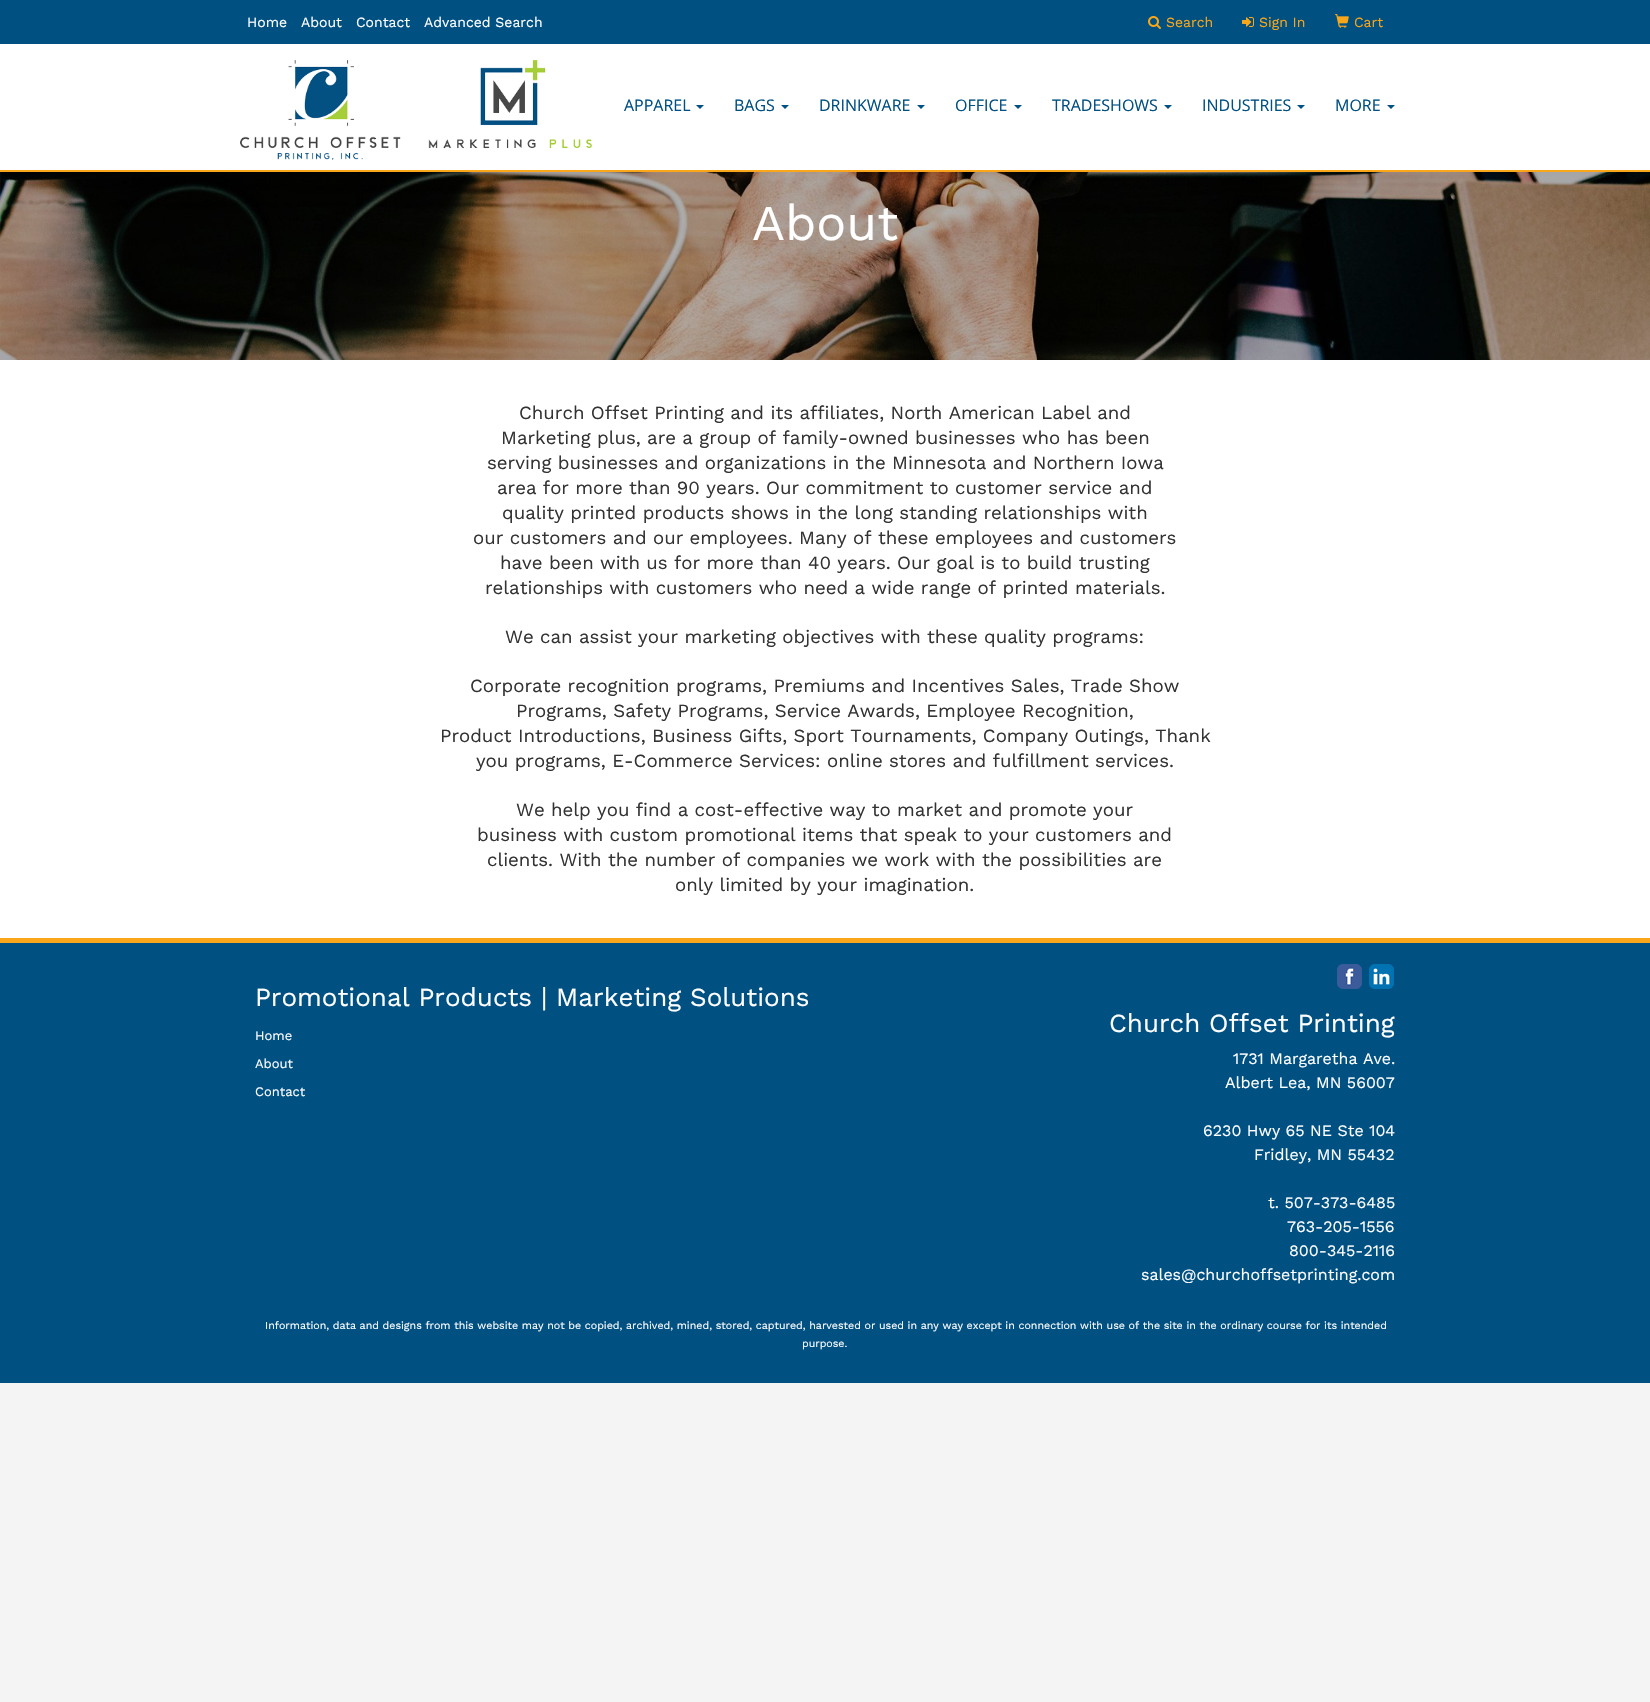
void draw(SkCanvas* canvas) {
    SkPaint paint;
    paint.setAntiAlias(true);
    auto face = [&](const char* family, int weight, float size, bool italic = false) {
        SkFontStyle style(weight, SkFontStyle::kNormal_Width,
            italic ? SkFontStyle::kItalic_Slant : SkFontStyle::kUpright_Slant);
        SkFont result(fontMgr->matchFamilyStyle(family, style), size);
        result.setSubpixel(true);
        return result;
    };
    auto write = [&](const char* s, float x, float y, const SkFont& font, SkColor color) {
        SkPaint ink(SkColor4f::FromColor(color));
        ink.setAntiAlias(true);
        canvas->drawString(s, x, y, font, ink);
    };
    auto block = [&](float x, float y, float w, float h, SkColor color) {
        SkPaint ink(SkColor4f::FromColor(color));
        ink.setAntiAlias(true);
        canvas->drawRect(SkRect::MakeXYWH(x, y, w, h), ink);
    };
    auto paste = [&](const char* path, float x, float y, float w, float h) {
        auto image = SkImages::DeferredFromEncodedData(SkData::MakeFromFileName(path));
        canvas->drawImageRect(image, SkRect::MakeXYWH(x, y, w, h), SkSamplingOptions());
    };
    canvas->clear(SkColorSetRGB(244, 244, 244));
    block(0, 0, 1650, 44, SkColorSetRGB(0, 80, 130));
    auto kFont1 = face("Work Sans", 400, 14);
    write("Home", 247, 27, kFont1, SK_ColorWHITE);
    write("About", 301, 27, kFont1, SK_ColorWHITE);
    write("Contact", 356, 27, kFont1, SK_ColorWHITE);
    write("Advanced Search", 424, 27, kFont1, SK_ColorWHITE);
    paste("pic1.png", 1148, 16, 13, 13);
    write("Search", 1166, 27, kFont1, SkColorSetRGB(250, 166, 26));
    paste("pic2.png", 1242, 17, 12, 10);
    write("Sign In", 1259, 27, kFont1, SkColorSetRGB(250, 166, 26));
    paste("pic3.png", 1335, 14, 14, 14);
    write("Cart", 1354, 27, kFont1, SkColorSetRGB(250, 166, 26));
    block(0, 44, 1650, 126, SK_ColorWHITE);
    block(0, 170, 1650, 2, SkColorSetRGB(250, 166, 26));
    paste("pic4.png", 240, 60, 352, 100);
    auto kFont2 = face("Open Sans", 400, 16);
    write("APPAREL", 624, 111, kFont2, SkColorSetRGB(0, 80, 130));
    paint.setColor(SkColorSetRGB(0, 80, 130));
    canvas->drawPath(SkPathBuilder().moveTo(696, 105).lineTo(704, 105).lineTo(700, 109).close().detach(), paint);
    write("BAGS", 734, 111, kFont2, SkColorSetRGB(0, 80, 130));
    canvas->drawPath(SkPathBuilder().moveTo(781, 105).lineTo(789, 105).lineTo(785, 109).close().detach(), paint);
    write("DRINKWARE", 819, 111, kFont2, SkColorSetRGB(0, 80, 130));
    canvas->drawPath(SkPathBuilder().moveTo(917, 105).lineTo(925, 105).lineTo(921, 109).close().detach(), paint);
    write("OFFICE", 955, 111, kFont2, SkColorSetRGB(0, 80, 130));
    canvas->drawPath(SkPathBuilder().moveTo(1014, 105).lineTo(1022, 105).lineTo(1018, 109).close().detach(), paint);
    write("TRADESHOWS", 1052, 111, kFont2, SkColorSetRGB(0, 80, 130));
    canvas->drawPath(SkPathBuilder().moveTo(1164, 105).lineTo(1172, 105).lineTo(1168, 109).close().detach(), paint);
    write("INDUSTRIES", 1202, 111, kFont2, SkColorSetRGB(0, 80, 130));
    canvas->drawPath(SkPathBuilder().moveTo(1297, 105).lineTo(1305, 105).lineTo(1301, 109).close().detach(), paint);
    write("MORE", 1335, 111, kFont2, SkColorSetRGB(0, 80, 130));
    canvas->drawPath(SkPathBuilder().moveTo(1387, 105).lineTo(1395, 105).lineTo(1391, 109).close().detach(), paint);
    paste("pic5.png", 0, 172, 1650, 188);
    auto kFont3 = face("Work Sans", 400, 50);
    write("About", 752, 240, kFont3, SK_ColorWHITE);
    block(0, 360, 1650, 578, SK_ColorWHITE);
    auto kFont4 = face("Work Sans", 400, 18.65f);
    write("Church Offset Printing and its affiliates, North American Label and", 519, 419, kFont4, SkColorSetRGB(51, 51, 51));
    write("Marketing plus, are a group of family-owned businesses who has been", 501, 444, kFont4, SkColorSetRGB(51, 51, 51));
    write("serving businesses and organizations in the Minnesota and Northern Iowa", 487, 469, kFont4, SkColorSetRGB(51, 51, 51));
    write("area for more than 90 years. Our commitment to customer service and", 497, 494, kFont4, SkColorSetRGB(51, 51, 51));
    write("quality printed products shows in the long standing relationships with", 502, 519, kFont4, SkColorSetRGB(51, 51, 51));
    write("our customers and our employees. Many of these employees and customers", 473, 544, kFont4, SkColorSetRGB(51, 51, 51));
    write("have been with us for more than 40 years. Our goal is to build trusting", 500, 569, kFont4, SkColorSetRGB(51, 51, 51));
    write("relationships with customers who need a wide range of printed materials.", 485, 594, kFont4, SkColorSetRGB(51, 51, 51));
    write("We can assist your marketing objectives with these quality programs:", 505, 643, kFont4, SkColorSetRGB(51, 51, 51));
    write("Corporate recognition programs, Premiums and Incentives Sales, Trade Show", 470, 692, kFont4, SkColorSetRGB(51, 51, 51));
    write("Programs, Safety Programs, Service Awards, Employee Recognition,", 516, 717, kFont4, SkColorSetRGB(51, 51, 51));
    write("Product Introductions, Business Gifts, Sport Tournaments, Company Outings, Thank", 440, 742, kFont4, SkColorSetRGB(51, 51, 51));
    write("you programs, E-Commerce Services: online stores and fulfillment services.", 476, 767, kFont4, SkColorSetRGB(51, 51, 51));
    write("We help you find a cost-effective way to market and promote your", 516, 816, kFont4, SkColorSetRGB(51, 51, 51));
    write("business with custom promotional items that speak to your customers and", 477, 841, kFont4, SkColorSetRGB(51, 51, 51));
    write("clients. With the number of companies we work with the possibilities are", 487, 866, kFont4, SkColorSetRGB(51, 51, 51));
    write("only limited by your imagination.", 675, 891, kFont4, SkColorSetRGB(51, 51, 51));
    block(0, 938, 1650, 5, SkColorSetRGB(250, 166, 26));
    block(0, 943, 1650, 440, SkColorSetRGB(0, 80, 130));
    auto kFont5 = face("Work Sans", 400, 26);
    write("Promotional Products | Marketing Solutions", 255, 1006, kFont5, SK_ColorWHITE);
    auto kFont6 = face("Work Sans", 400, 13);
    write("Home", 255, 1040, kFont6, SK_ColorWHITE);
    write("About", 255, 1068, kFont6, SK_ColorWHITE);
    write("Contact", 255, 1096, kFont6, SK_ColorWHITE);
    paste("pic6.png", 1337, 964, 25, 25);
    paste("pic7.png", 1369, 964, 25, 25);
    write("Church Offset Printing", 1109, 1032, kFont5, SK_ColorWHITE);
    auto kFont7 = face("Work Sans", 400, 16);
    write("1731 Margaretha Ave.", 1233, 1064, kFont7, SK_ColorWHITE);
    write("Albert Lea, MN 56007", 1225, 1088, kFont7, SK_ColorWHITE);
    write("6230 Hwy 65 NE Ste 104", 1203, 1136, kFont7, SK_ColorWHITE);
    write("Fridley, MN 55432", 1254, 1160, kFont7, SK_ColorWHITE);
    write("t. 507-373-6485", 1268, 1208, kFont7, SK_ColorWHITE);
    write("763-205-1556", 1287, 1232, kFont7, SK_ColorWHITE);
    write("800-345-2116", 1289, 1256, kFont7, SK_ColorWHITE);
    write("sales@churchoffsetprinting.com", 1141, 1280, kFont7, SK_ColorWHITE);
    auto kFont8 = face("Work Sans", 400, 10.67f);
    write("Information, data and designs from this website may not be copied, archived, mined, stored, captured, harvested or used in any way except in connection with use of the site in the ordinary course for its intended", 265, 1329, kFont8, SK_ColorWHITE);
    write("purpose.", 802, 1347, kFont8, SK_ColorWHITE);
}
